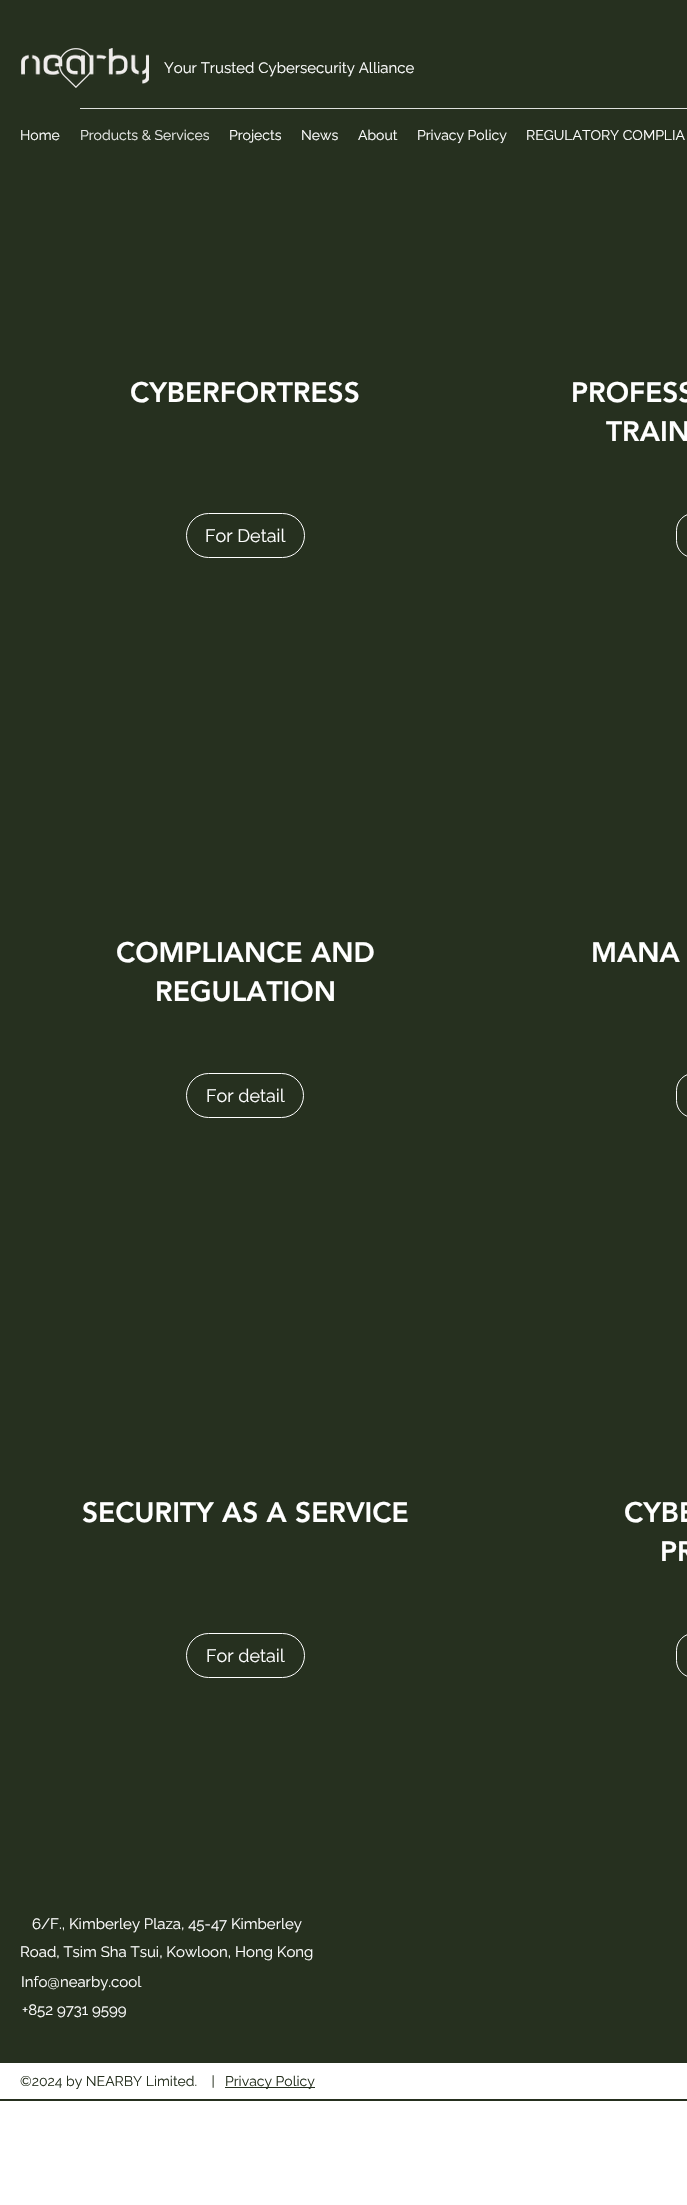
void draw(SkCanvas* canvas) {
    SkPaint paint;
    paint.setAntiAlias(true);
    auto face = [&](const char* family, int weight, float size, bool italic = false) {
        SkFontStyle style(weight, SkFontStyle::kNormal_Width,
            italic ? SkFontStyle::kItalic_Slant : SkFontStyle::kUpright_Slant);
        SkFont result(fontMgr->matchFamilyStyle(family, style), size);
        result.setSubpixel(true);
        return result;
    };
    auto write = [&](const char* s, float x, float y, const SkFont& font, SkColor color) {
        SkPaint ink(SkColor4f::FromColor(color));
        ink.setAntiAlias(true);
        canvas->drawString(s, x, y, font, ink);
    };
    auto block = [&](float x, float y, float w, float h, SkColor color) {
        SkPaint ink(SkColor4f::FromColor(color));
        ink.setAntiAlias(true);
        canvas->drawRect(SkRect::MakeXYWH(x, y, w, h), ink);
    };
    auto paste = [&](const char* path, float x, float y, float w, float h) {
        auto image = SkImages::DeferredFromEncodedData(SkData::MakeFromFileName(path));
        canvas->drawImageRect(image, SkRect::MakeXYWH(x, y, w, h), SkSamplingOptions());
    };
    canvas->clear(SK_ColorWHITE);
    block(0, 0, 687, 2101, SkColorSetRGB(38, 48, 31));
    paste("pic1.png", 21, 48, 128, 40);
    auto kFont1 = face("Raleway", 400, 15);
    write("Your Trusted Cybersecurity Alliance", 164, 73, kFont1, SK_ColorWHITE);
    block(80, 108, 607, 1, SkColorSetRGB(222, 224, 221));
    auto kFont2 = face("Raleway", 400, 14);
    write("Home", 20, 140, kFont2, SK_ColorWHITE);
    write("Products & Services", 80, 140, kFont2, SkColorSetRGB(232, 233, 231));
    write("Projects", 229, 140, kFont2, SK_ColorWHITE);
    write("News", 301, 140, kFont2, SK_ColorWHITE);
    write("About", 358, 140, kFont2, SK_ColorWHITE);
    write("Privacy Policy", 417, 140, kFont2, SK_ColorWHITE);
    write("REGULATORY COMPLIA", 526, 140, kFont2, SK_ColorWHITE);
    auto kFont3 = face("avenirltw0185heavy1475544", 900, 28);
    write("CYBERFORTRESS", 130, 402, kFont3, SK_ColorWHITE);
    paint.setStyle(SkPaint::kStroke_Style);
    paint.setStrokeWidth(1);
    paint.setColor(SK_ColorWHITE);
    canvas->drawRoundRect(SkRect::MakeXYWH(186.5f, 513.5f, 118, 44), 22, 22, paint);
    auto kFont4 = face("Raleway", 400, 18);
    write("For Detail", 205, 542, kFont4, SK_ColorWHITE);
    write("PROFESS", 571, 402, kFont3, SK_ColorWHITE);
    write("TRAIN", 606, 441, kFont3, SK_ColorWHITE);
    canvas->drawRoundRect(SkRect::MakeXYWH(676.5f, 513.5f, 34, 44), 22, 22, paint);
    write("COMPLIANCE AND", 116, 962, kFont3, SK_ColorWHITE);
    write("REGULATION", 155, 1001, kFont3, SK_ColorWHITE);
    canvas->drawRoundRect(SkRect::MakeXYWH(186.5f, 1073.5f, 117, 44), 22, 22, paint);
    write("For detail", 206, 1102, kFont4, SK_ColorWHITE);
    write("MANA", 591, 962, kFont3, SK_ColorWHITE);
    canvas->drawRoundRect(SkRect::MakeXYWH(676.5f, 1073.5f, 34, 44), 22, 22, paint);
    write("SECURITY AS A SERVICE", 82, 1522, kFont3, SK_ColorWHITE);
    canvas->drawRoundRect(SkRect::MakeXYWH(186.5f, 1633.5f, 118, 44), 22, 22, paint);
    write("For detail", 206, 1662, kFont4, SK_ColorWHITE);
    write("CYBE", 624, 1522, kFont3, SK_ColorWHITE);
    write("PR", 660, 1561, kFont3, SK_ColorWHITE);
    canvas->drawRoundRect(SkRect::MakeXYWH(676.5f, 1633.5f, 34, 44), 22, 22, paint);
    write("6/F., Kimberley Plaza, 45-47 Kimberley", 32, 1929, kFont1, SK_ColorWHITE);
    write("Road, Tsim Sha Tsui, Kowloon, Hong Kong", 20, 1957, kFont1, SK_ColorWHITE);
    write("Info@nearby.cool", 21, 1987, kFont1, SK_ColorWHITE);
    write("+852 9731 9599", 22, 2015, kFont1, SK_ColorWHITE);
    block(0, 2063, 687, 36, SK_ColorWHITE);
    write("©2024 by NEARBY Limited.    |", 20, 2086, kFont2, SkColorSetRGB(38, 48, 31));
    block(225, 2087, 90, 1, SkColorSetRGB(38, 48, 31));
    write("Privacy Policy", 225, 2086, kFont2, SkColorSetRGB(38, 48, 31));
}
